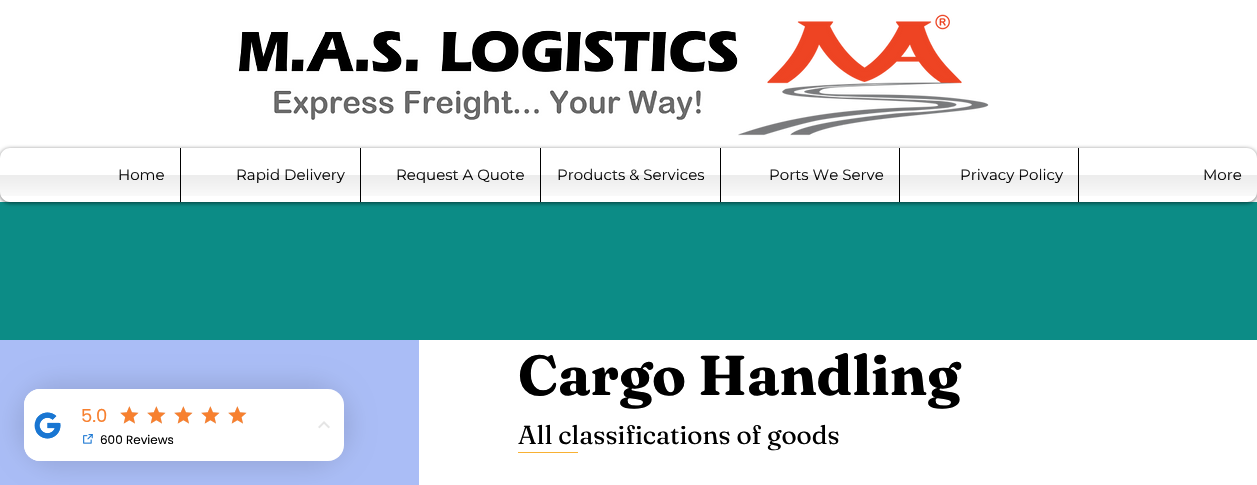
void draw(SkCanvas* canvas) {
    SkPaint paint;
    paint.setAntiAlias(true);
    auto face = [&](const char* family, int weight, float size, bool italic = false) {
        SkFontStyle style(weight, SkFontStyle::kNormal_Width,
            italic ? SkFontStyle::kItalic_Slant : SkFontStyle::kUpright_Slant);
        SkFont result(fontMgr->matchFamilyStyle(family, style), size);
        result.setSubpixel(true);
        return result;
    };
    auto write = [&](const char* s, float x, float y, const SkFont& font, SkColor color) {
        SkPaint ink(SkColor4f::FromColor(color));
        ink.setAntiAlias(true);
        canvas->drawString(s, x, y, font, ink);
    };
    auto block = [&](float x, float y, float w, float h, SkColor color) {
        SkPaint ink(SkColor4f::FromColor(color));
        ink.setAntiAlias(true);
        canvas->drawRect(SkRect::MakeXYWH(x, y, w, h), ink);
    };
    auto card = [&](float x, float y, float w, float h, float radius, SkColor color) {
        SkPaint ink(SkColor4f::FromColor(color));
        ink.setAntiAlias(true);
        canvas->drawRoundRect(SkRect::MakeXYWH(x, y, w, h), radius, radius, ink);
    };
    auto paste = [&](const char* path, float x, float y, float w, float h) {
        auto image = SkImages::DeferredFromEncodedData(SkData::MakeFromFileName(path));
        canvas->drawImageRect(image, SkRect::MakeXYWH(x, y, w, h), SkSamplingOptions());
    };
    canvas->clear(SK_ColorWHITE);
    paste("pic1.png", 238, 30, 500, 90);
    paste("pic2.png", 738, 14, 251, 122);
    block(0, 202, 1257, 138, SkColorSetRGB(12, 140, 134));
    paint.setColor(SkColorSetARGB(153, 0, 0, 0));
    paint.setMaskFilter(SkMaskFilter::MakeBlur(kNormal_SkBlurStyle, 2));
    canvas->drawRoundRect(SkRect::MakeXYWH(0, 149, 1257, 54), 10, 10, paint);
    paint.setMaskFilter(nullptr);
    paste("pic3.png", 0, 192, 1257, 1);
    paint.setColor(SK_ColorWHITE);
    canvas->drawPath(SkPathBuilder().moveTo(10, 148).lineTo(180, 148).lineTo(180, 202).lineTo(10, 202).cubicTo(4.5f, 202, 0, 197.5f, 0, 192).lineTo(0, 158).cubicTo(0, 152.5f, 4.5f, 148, 10, 148).close().detach(), paint);
    auto kFont1 = face("Montserrat", 400, 15);
    write("Home", 118, 180, kFont1, SK_ColorBLACK);
    paste("pic4.png", 0, 169, 180, 27);
    block(181, 148, 179, 54, SK_ColorWHITE);
    block(180, 148, 1, 54, SK_ColorBLACK);
    write("Rapid Delivery", 236, 180, kFont1, SK_ColorBLACK);
    paste("pic5.png", 181, 168, 179, 28);
    block(361, 148, 179, 54, SK_ColorWHITE);
    block(360, 148, 1, 54, SK_ColorBLACK);
    write("Request A Quote", 396, 180, kFont1, SK_ColorBLACK);
    paste("pic6.png", 361, 169, 179, 27);
    block(541, 148, 179, 54, SK_ColorWHITE);
    block(540, 148, 1, 54, SK_ColorBLACK);
    write("Products & Services", 557, 180, kFont1, SK_ColorBLACK);
    paste("pic7.png", 541, 168, 179, 28);
    block(721, 148, 178, 54, SK_ColorWHITE);
    block(720, 148, 1, 54, SK_ColorBLACK);
    write("Ports We Serve", 769, 180, kFont1, SK_ColorBLACK);
    paste("pic8.png", 721, 169, 178, 27);
    block(900, 148, 178, 54, SK_ColorWHITE);
    block(899, 148, 1, 54, SK_ColorBLACK);
    write("Privacy Policy", 960, 180, kFont1, SK_ColorBLACK);
    paste("pic9.png", 900, 168, 178, 28);
    canvas->drawPath(SkPathBuilder().moveTo(1078, 148).lineTo(1247, 148).cubicTo(1252.5f, 148, 1257, 152.5f, 1257, 158).lineTo(1257, 192).cubicTo(1257, 197.5f, 1252.5f, 202, 1247, 202).lineTo(1078, 202).close().detach(), paint);
    block(1078, 148, 1, 54, SK_ColorBLACK);
    write("More", 1203, 180, kFont1, SK_ColorBLACK);
    paste("pic10.png", 1079, 169, 178, 27);
    block(0, 340, 419, 145, SkColorSetRGB(170, 189, 246));
    auto kFont2 = face("Fraunces", 700, 56);
    write("Cargo Handling", 518, 395, kFont2, SK_ColorBLACK);
    auto kFont3 = face("Fraunces", 400, 26);
    write("All classifications of goods", 518, 444, kFont3, SK_ColorBLACK);
    block(518, 452, 60, 1, SkColorSetRGB(248, 177, 51));
    paint.setColor(SkColorSetARGB(31, 0, 0, 0));
    paint.setMaskFilter(SkMaskFilter::MakeBlur(kNormal_SkBlurStyle, 12));
    canvas->drawRoundRect(SkRect::MakeXYWH(18, 383, 332, 84), 42, 42, paint);
    paint.setMaskFilter(nullptr);
    card(24, 389, 320, 72, 16, SK_ColorWHITE);
    paint.setColor(SK_ColorWHITE);
    canvas->drawPath(SkPathBuilder().moveTo(40, 389).lineTo(71, 389).lineTo(71, 461).lineTo(40, 461).cubicTo(31, 461, 24, 454, 24, 445).lineTo(24, 405).cubicTo(24, 396, 31, 389, 40, 389).close().detach(), paint);
    paste("pic11.png", 34, 412, 27, 27);
    auto kFont4 = face("Poppins", 400, 18);
    write("5.0", 81, 422, kFont4, SkColorSetRGB(247, 128, 47));
    paste("pic12.png", 120, 406, 18, 18);
    paste("pic13.png", 120, 406, 19, 18);
    paste("pic12.png", 147, 406, 18, 18);
    paste("pic13.png", 147, 406, 19, 18);
    paste("pic12.png", 174, 406, 18, 18);
    paste("pic13.png", 174, 406, 19, 18);
    paste("pic12.png", 201, 406, 18, 18);
    paste("pic13.png", 201, 406, 19, 18);
    paste("pic12.png", 228, 406, 18, 18);
    paste("pic13.png", 228, 406, 19, 18);
    paste("pic14.png", 83, 434, 10, 10);
    auto kFont5 = face("Poppins", 400, 12);
    write("600 Reviews", 100, 444, kFont5, SK_ColorBLACK);
    paste("pic15.png", 318, 421, 12, 8);
}
